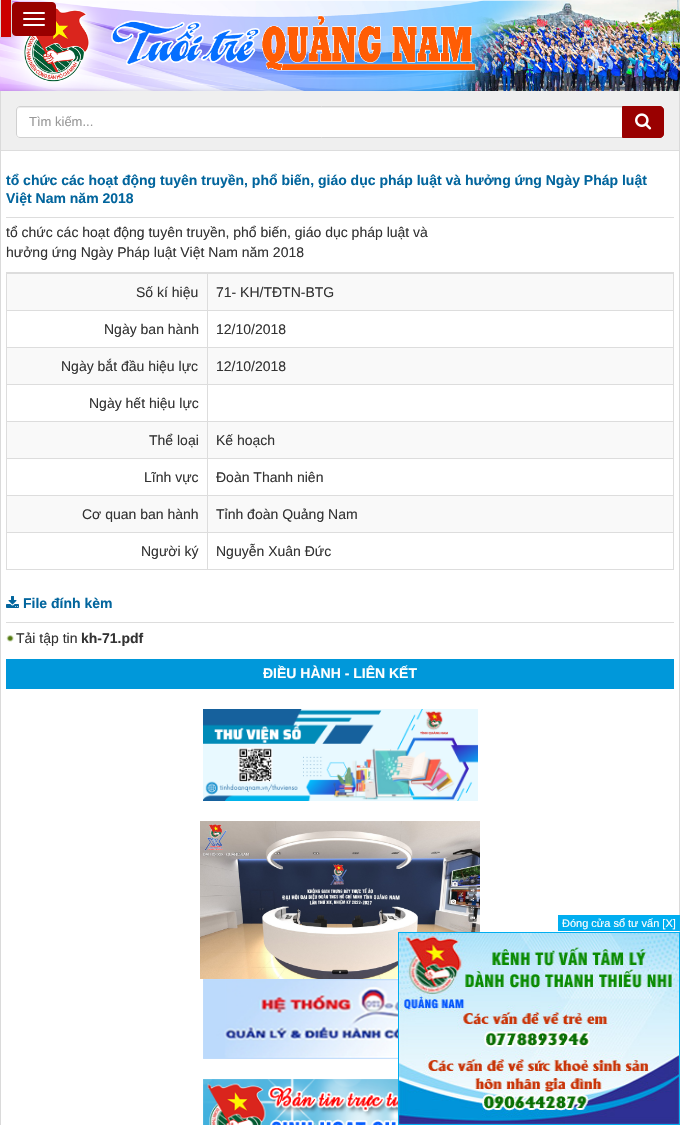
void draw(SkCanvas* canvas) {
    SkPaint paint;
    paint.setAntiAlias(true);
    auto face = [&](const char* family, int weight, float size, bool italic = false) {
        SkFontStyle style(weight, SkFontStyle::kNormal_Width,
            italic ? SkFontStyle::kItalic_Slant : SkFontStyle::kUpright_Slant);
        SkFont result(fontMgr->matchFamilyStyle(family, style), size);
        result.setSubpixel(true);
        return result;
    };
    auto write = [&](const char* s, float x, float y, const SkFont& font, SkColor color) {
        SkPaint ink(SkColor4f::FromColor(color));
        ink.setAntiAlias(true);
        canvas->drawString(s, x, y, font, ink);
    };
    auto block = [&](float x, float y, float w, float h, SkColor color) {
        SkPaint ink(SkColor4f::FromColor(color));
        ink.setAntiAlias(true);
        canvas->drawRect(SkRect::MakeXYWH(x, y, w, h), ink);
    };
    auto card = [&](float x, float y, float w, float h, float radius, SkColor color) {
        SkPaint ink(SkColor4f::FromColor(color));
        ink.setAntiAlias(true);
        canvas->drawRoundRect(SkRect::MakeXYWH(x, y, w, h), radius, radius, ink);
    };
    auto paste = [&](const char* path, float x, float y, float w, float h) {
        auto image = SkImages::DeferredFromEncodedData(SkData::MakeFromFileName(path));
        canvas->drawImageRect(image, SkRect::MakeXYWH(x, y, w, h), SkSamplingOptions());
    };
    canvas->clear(SK_ColorWHITE);
    paste("pic1.png", 0, 0, 680, 91);
    paint.setColor(SkColorSetARGB(38, 0, 0, 0));
    paint.setMaskFilter(SkMaskFilter::MakeBlur(kNormal_SkBlurStyle, 2));
    canvas->drawRect(SkRect::MakeXYWH(0, 0, 12, 37), paint);
    paint.setMaskFilter(nullptr);
    block(11, 0, 1, 37, SkColorSetRGB(218, 218, 218));
    block(0, 0, 1, 37, SkColorSetRGB(218, 218, 218));
    block(1, 0, 10, 37, SkColorSetRGB(204, 0, 0));
    paint.setColor(SkColorSetRGB(153, 0, 0));
    canvas->drawRoundRect(SkRect::MakeXYWH(12.5f, 2.5f, 43, 33), 3.5f, 3.5f, paint);
    paint.setStyle(SkPaint::kStroke_Style);
    paint.setStrokeWidth(1);
    canvas->drawRoundRect(SkRect::MakeXYWH(12.5f, 2.5f, 43, 33), 3.5f, 3.5f, paint);
    card(23, 12, 22, 2, 1, SK_ColorWHITE);
    card(23, 18, 22, 2, 1, SK_ColorWHITE);
    card(23, 24, 22, 2, 1, SK_ColorWHITE);
    paint.setStyle(SkPaint::kFill_Style);
    paint.setColor(SkColorSetARGB(38, 0, 0, 0));
    paint.setMaskFilter(SkMaskFilter::MakeBlur(kNormal_SkBlurStyle, 2));
    canvas->drawRect(SkRect::MakeXYWH(0, 91, 680, 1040), paint);
    paint.setMaskFilter(nullptr);
    block(1, 151, 678, 974, SK_ColorWHITE);
    block(679, 91, 1, 841, SkColorSetRGB(218, 218, 218));
    block(0, 91, 1, 1034, SkColorSetRGB(218, 218, 218));
    block(1, 150, 678, 1, SkColorSetRGB(221, 221, 221));
    block(1, 91, 678, 59, SkColorSetRGB(239, 239, 239));
    paint.setColor(SK_ColorWHITE);
    canvas->drawPath(SkPathBuilder().moveTo(20, 106).lineTo(623, 106).lineTo(623, 138).lineTo(20, 138).cubicTo(18, 138, 16, 136, 16, 134).lineTo(16, 110).cubicTo(16, 108, 18, 106, 20, 106).close().detach(), paint);
    paint.setColor(SkColorSetRGB(236, 236, 236));
    canvas->drawPath(SkPathBuilder().moveTo(20, 108).lineTo(622, 108).lineTo(622, 107).lineTo(20, 107).cubicTo(18, 107, 17, 108, 17, 110).lineTo(17, 111).cubicTo(17, 109, 18, 108, 20, 108).close().detach(), paint);
    paint.setStyle(SkPaint::kStroke_Style);
    paint.setColor(SkColorSetRGB(208, 208, 208));
    canvas->drawPath(SkPathBuilder().moveTo(20, 106.5f).lineTo(622.5f, 106.5f).lineTo(622.5f, 137.5f).lineTo(20, 137.5f).cubicTo(18, 137.5f, 16.5f, 136, 16.5f, 134).lineTo(16.5f, 110).cubicTo(16.5f, 108, 18, 106.5f, 20, 106.5f).close().detach(), paint);
    auto kFont1 = face("Liberation Sans", 400, 13);
    write("Tìm kiếm...", 29, 126, kFont1, SkColorSetRGB(153, 153, 153));
    paint.setStyle(SkPaint::kFill_Style);
    paint.setColor(SkColorSetRGB(153, 0, 0));
    canvas->drawPath(SkPathBuilder().moveTo(622.5f, 106.5f).lineTo(660, 106.5f).cubicTo(662, 106.5f, 663.5f, 108, 663.5f, 110).lineTo(663.5f, 134).cubicTo(663.5f, 136, 662, 137.5f, 660, 137.5f).lineTo(622.5f, 137.5f).close().detach(), paint);
    paint.setStyle(SkPaint::kStroke_Style);
    canvas->drawPath(SkPathBuilder().moveTo(622.5f, 106.5f).lineTo(660, 106.5f).cubicTo(662, 106.5f, 663.5f, 108, 663.5f, 110).lineTo(663.5f, 134).cubicTo(663.5f, 136, 662, 137.5f, 660, 137.5f).lineTo(622.5f, 137.5f).close().detach(), paint);
    paste("pic2.png", 635, 113, 17, 17);
    block(6, 217, 668, 1, SkColorSetRGB(221, 221, 221));
    auto kFont2 = face("Liberation Sans", 700, 14);
    write("tổ chức các hoạt động tuyên truyền, phổ biến, giáo dục pháp luật và hưởng ứng Ngày Pháp luật", 6, 185, kFont2, SkColorSetRGB(2, 101, 157));
    write("Việt Nam năm 2018", 6, 203, kFont2, SkColorSetRGB(2, 101, 157));
    auto kFont3 = face("Liberation Sans", 400, 14);
    write("tổ chức các hoạt động tuyên truyền, phổ biến, giáo dục pháp luật và", 6, 237, kFont3, SkColorSetRGB(51, 51, 51));
    write("hưởng ứng Ngày Pháp luật Việt Nam năm 2018", 6, 257, kFont3, SkColorSetRGB(51, 51, 51));
    paint.setColor(SkColorSetRGB(221, 221, 221));
    canvas->drawRect(SkRect::MakeXYWH(6.5f, 272.5f, 667, 297), paint);
    block(7, 274, 666, 36, SkColorSetRGB(249, 249, 249));
    block(207, 273, 466, 1, SkColorSetRGB(221, 221, 221));
    block(207, 310, 466, 1, SkColorSetRGB(221, 221, 221));
    block(207, 347, 466, 1, SkColorSetRGB(221, 221, 221));
    block(7, 348, 666, 36, SkColorSetRGB(249, 249, 249));
    block(207, 384, 466, 1, SkColorSetRGB(221, 221, 221));
    block(207, 421, 466, 1, SkColorSetRGB(221, 221, 221));
    block(7, 422, 666, 36, SkColorSetRGB(249, 249, 249));
    block(207, 458, 466, 1, SkColorSetRGB(221, 221, 221));
    block(207, 495, 466, 1, SkColorSetRGB(221, 221, 221));
    block(7, 496, 666, 36, SkColorSetRGB(249, 249, 249));
    block(207, 532, 466, 1, SkColorSetRGB(221, 221, 221));
    block(207, 532, 1, 37, SkColorSetRGB(221, 221, 221));
    block(7, 532, 201, 1, SkColorSetRGB(221, 221, 221));
    block(207, 495, 1, 38, SkColorSetRGB(221, 221, 221));
    block(7, 495, 201, 1, SkColorSetRGB(221, 221, 221));
    block(207, 458, 1, 38, SkColorSetRGB(221, 221, 221));
    block(7, 458, 201, 1, SkColorSetRGB(221, 221, 221));
    block(207, 421, 1, 38, SkColorSetRGB(221, 221, 221));
    block(7, 421, 201, 1, SkColorSetRGB(221, 221, 221));
    block(207, 384, 1, 38, SkColorSetRGB(221, 221, 221));
    block(7, 384, 201, 1, SkColorSetRGB(221, 221, 221));
    block(207, 347, 1, 38, SkColorSetRGB(221, 221, 221));
    block(7, 347, 201, 1, SkColorSetRGB(221, 221, 221));
    block(207, 310, 1, 38, SkColorSetRGB(221, 221, 221));
    block(7, 310, 201, 1, SkColorSetRGB(221, 221, 221));
    block(207, 273, 1, 38, SkColorSetRGB(221, 221, 221));
    block(7, 273, 201, 1, SkColorSetRGB(221, 221, 221));
    write("Số kí hiệu", 136, 297, kFont3, SkColorSetRGB(51, 51, 51));
    write("71- KH/TĐTN-BTG", 216, 297, kFont3, SkColorSetRGB(51, 51, 51));
    write("Ngày ban hành", 104, 334, kFont3, SkColorSetRGB(51, 51, 51));
    write("12/10/2018", 216, 334, kFont3, SkColorSetRGB(51, 51, 51));
    write("Ngày bắt đầu hiệu lực", 61, 371, kFont3, SkColorSetRGB(51, 51, 51));
    write("12/10/2018", 216, 371, kFont3, SkColorSetRGB(51, 51, 51));
    write("Ngày hết hiệu lực", 89, 408, kFont3, SkColorSetRGB(51, 51, 51));
    write("Thể loại", 149, 445, kFont3, SkColorSetRGB(51, 51, 51));
    write("Kế hoạch", 216, 445, kFont3, SkColorSetRGB(51, 51, 51));
    write("Lĩnh vực", 144, 482, kFont3, SkColorSetRGB(51, 51, 51));
    write("Đoàn Thanh niên", 216, 482, kFont3, SkColorSetRGB(51, 51, 51));
    write("Cơ quan ban hành", 82, 519, kFont3, SkColorSetRGB(51, 51, 51));
    write("Tỉnh đoàn Quảng Nam", 216, 519, kFont3, SkColorSetRGB(51, 51, 51));
    write("Người ký", 141, 556, kFont3, SkColorSetRGB(51, 51, 51));
    write("Nguyễn Xuân Đức", 216, 556, kFont3, SkColorSetRGB(51, 51, 51));
    block(6, 622, 668, 1, SkColorSetRGB(221, 221, 221));
    paste("pic3.png", 6, 596, 13, 12);
    write("File đính kèm", 23, 608, kFont2, SkColorSetRGB(2, 101, 157));
    paste("pic4.png", 6, 635, 8, 7);
    write("Tải tập tin", 16, 643, kFont3, SkColorSetRGB(51, 51, 51));
    write("kh-71.pdf", 81, 643, kFont2, SkColorSetRGB(51, 51, 51));
    block(6, 659, 668, 30, SkColorSetRGB(0, 152, 218));
    write("ĐIỀU HÀNH - LIÊN KẾT", 263, 678, kFont2, SK_ColorWHITE);
    paste("pic5.png", 203, 709, 275, 92);
    paste("pic6.png", 200, 821, 280, 158);
    paste("pic7.png", 203, 979, 195, 80);
    paste("pic8.png", 203, 1079, 195, 46);
    block(558, 915, 122, 16, SkColorSetRGB(1, 174, 240));
    auto kFont4 = face("Liberation Sans", 400, 11);
    write("Đóng cửa sổ tư vấn [X]", 562, 927, kFont4, SK_ColorWHITE);
    paint.setColor(SkColorSetRGB(1, 174, 240));
    canvas->drawRect(SkRect::MakeXYWH(398.5f, 932.5f, 281, 192), paint);
    paste("pic9.png", 399, 933, 280, 191);
}
